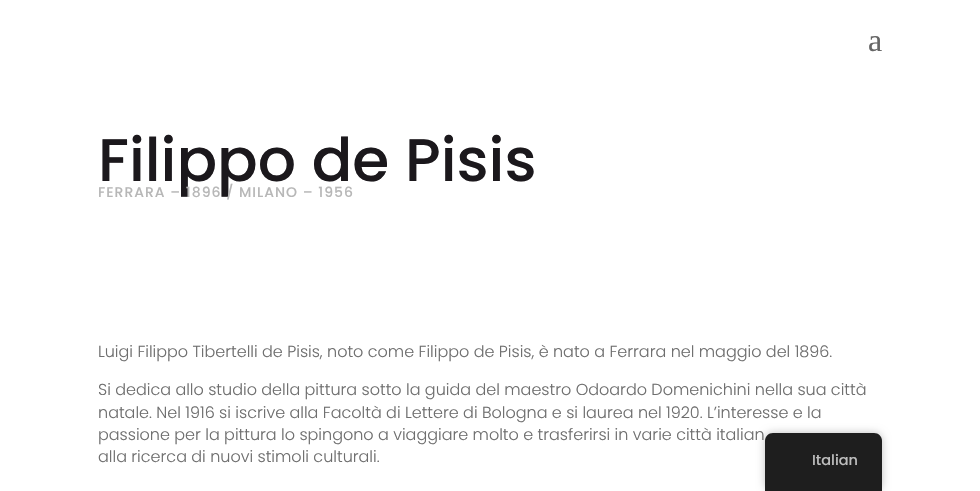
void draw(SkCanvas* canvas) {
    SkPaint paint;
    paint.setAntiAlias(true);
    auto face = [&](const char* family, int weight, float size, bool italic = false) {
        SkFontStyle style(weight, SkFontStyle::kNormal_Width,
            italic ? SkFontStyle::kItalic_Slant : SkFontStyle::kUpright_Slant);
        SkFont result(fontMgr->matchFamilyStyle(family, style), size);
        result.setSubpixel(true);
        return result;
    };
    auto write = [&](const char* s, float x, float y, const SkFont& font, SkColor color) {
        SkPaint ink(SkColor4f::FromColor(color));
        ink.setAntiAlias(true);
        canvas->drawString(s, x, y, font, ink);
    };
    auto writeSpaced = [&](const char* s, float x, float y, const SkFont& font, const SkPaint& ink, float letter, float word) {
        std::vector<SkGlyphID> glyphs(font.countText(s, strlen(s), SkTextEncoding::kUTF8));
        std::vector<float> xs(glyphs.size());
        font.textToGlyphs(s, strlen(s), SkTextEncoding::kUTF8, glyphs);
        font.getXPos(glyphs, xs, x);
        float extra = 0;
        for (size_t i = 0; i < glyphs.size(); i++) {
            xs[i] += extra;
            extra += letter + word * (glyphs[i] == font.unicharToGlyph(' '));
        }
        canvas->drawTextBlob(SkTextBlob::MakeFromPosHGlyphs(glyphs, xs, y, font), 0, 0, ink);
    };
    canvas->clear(SK_ColorWHITE);
    auto kFont1 = face("Liberation Serif", 400, 32);
    write("a", 868, 51, kFont1, SkColorSetRGB(102, 102, 102));
    auto kFont2 = face("Poppins", 500, 60);
    write("Filippo de Pisis", 98, 181, kFont2, SkColorSetRGB(27, 24, 28));
    auto kFont3 = face("Poppins", 500, 14);
    paint.setColor(SkColorSetRGB(183, 183, 183));
    writeSpaced("FERRARA – 1896 / MILANO – 1956", 98, 197, kFont3, paint, 1, 0);
    auto kFont4 = face("Poppins", 300, 16);
    write("Luigi Filippo Tibertelli de Pisis, noto come Filippo de Pisis, è nato a Ferrara nel maggio del 1896.", 98, 357, kFont4, SkColorSetRGB(110, 110, 110));
    write("Si dedica allo studio della pittura sotto la guida del maestro Odoardo Domenichini nella sua città", 98, 395, kFont4, SkColorSetRGB(110, 110, 110));
    write("natale. Nel 1916 si iscrive alla Facoltà di Lettere di Bologna e si laurea nel 1920. L’interesse e la", 98, 418, kFont4, SkColorSetRGB(110, 110, 110));
    write("passione per la pittura lo spingono a viaggiare molto e trasferirsi in varie città italian", 98, 440, kFont4, SkColorSetRGB(110, 110, 110));
    write("alla ricerca di nuovi stimoli culturali.", 98, 462, kFont4, SkColorSetRGB(110, 110, 110));
    paint.setColor(SkColorSetARGB(64, 0, 0, 0));
    paint.setMaskFilter(SkMaskFilter::MakeBlur(kNormal_SkBlurStyle, 4));
    canvas->drawRoundRect(SkRect::MakeXYWH(765, 433, 117, 58), 8, 8, paint);
    paint.setMaskFilter(nullptr);
    paint.setColor(SkColorSetRGB(30, 30, 30));
    canvas->drawPath(SkPathBuilder().moveTo(773, 433).lineTo(874, 433).cubicTo(878.5f, 433, 882, 436.5f, 882, 441).lineTo(882, 491).lineTo(765, 491).lineTo(765, 441).cubicTo(765, 436.5f, 768.5f, 433, 773, 433).close().detach(), paint);
    auto kFont5 = face("Poppins", 500, 14.5f);
    write("Italian", 812, 465, kFont5, SkColorSetRGB(189, 189, 189));
}
